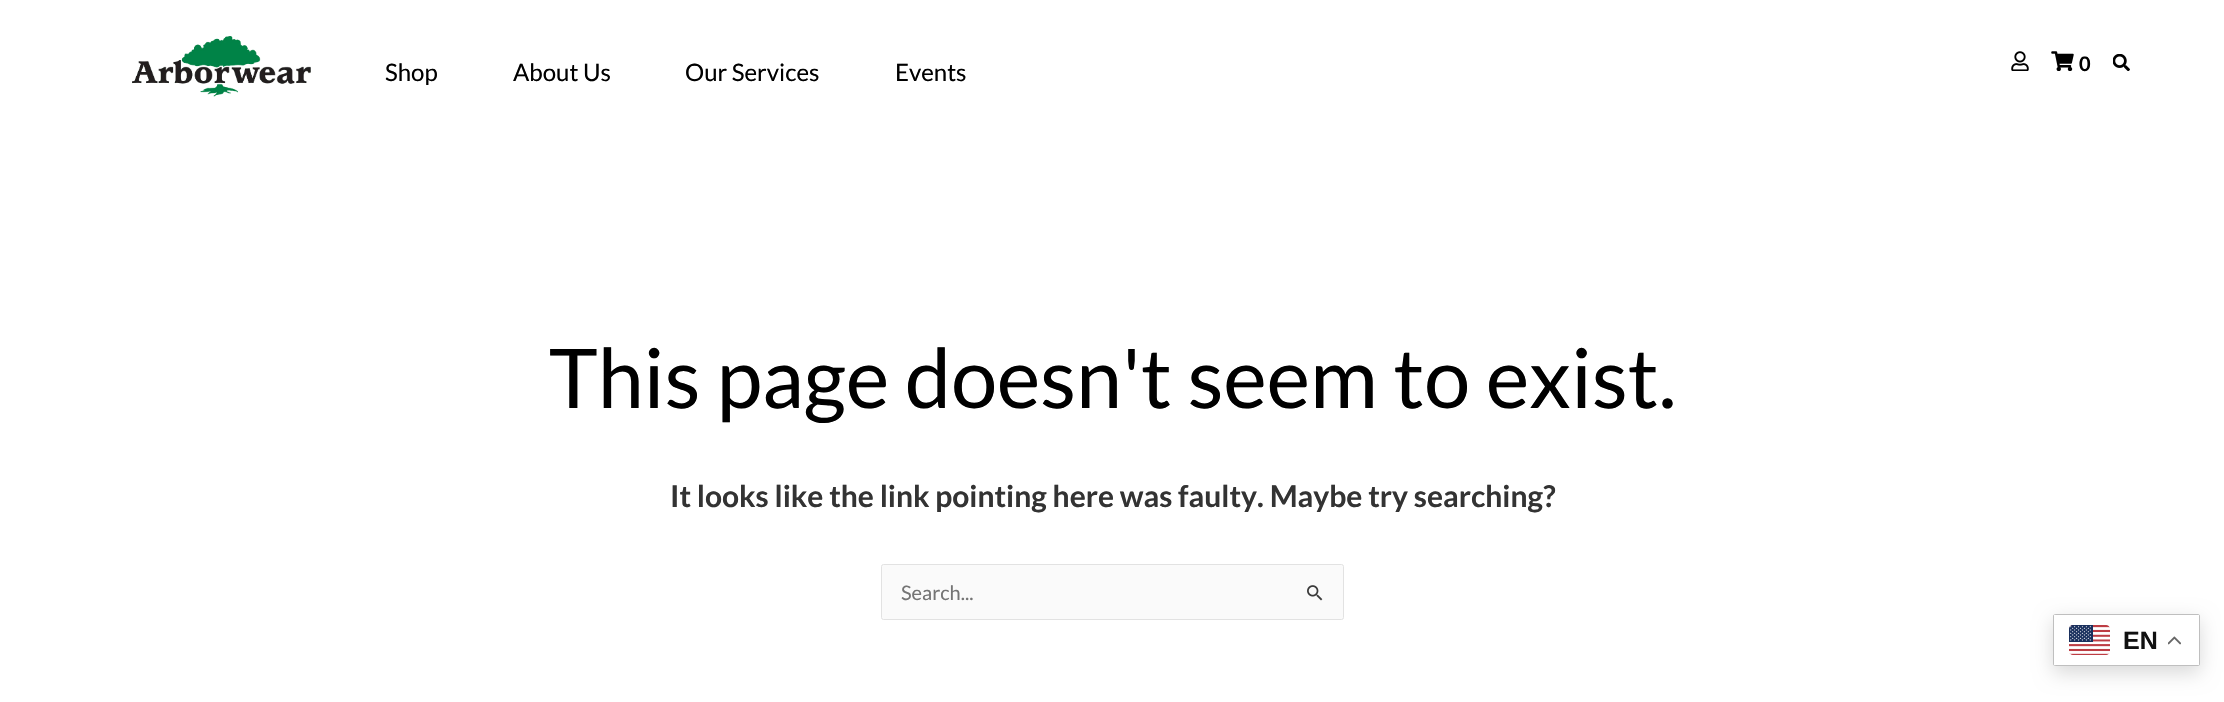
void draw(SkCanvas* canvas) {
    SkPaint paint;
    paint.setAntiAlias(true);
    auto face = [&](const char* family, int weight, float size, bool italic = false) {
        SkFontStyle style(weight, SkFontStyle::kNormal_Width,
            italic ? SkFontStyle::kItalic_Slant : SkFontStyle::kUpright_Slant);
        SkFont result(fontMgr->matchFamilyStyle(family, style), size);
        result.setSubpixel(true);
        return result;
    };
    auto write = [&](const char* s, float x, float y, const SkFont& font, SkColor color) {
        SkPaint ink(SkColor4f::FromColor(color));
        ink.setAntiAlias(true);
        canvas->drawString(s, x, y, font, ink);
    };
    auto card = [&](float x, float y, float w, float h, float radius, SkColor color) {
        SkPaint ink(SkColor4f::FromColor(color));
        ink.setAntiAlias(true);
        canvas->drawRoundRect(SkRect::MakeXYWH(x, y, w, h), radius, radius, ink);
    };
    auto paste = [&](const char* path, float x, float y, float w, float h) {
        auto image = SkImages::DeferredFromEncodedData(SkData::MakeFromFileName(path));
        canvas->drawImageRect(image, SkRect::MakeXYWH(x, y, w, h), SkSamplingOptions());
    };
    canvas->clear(SK_ColorWHITE);
    paste("pic1.png", 132, 36, 179, 61);
    auto kFont1 = face("Lato", 400, 24);
    write("Shop", 385, 81, kFont1, SK_ColorBLACK);
    write("About Us", 513, 81, kFont1, SK_ColorBLACK);
    write("Our Services", 685, 81, kFont1, SK_ColorBLACK);
    write("Events", 895, 81, kFont1, SK_ColorBLACK);
    paste("pic2.png", 2011, 51, 18, 20);
    paste("pic3.png", 2051, 51, 23, 20);
    auto kFont2 = face("Lato", 700, 20);
    write("0", 2079, 71, kFont2, SK_ColorBLACK);
    paste("pic4.png", 2113, 54, 17, 17);
    auto kFont3 = face("Lato", 400, 82.5f);
    write("This page doesn't seem to exist.", 549, 408, kFont3, SK_ColorBLACK);
    auto kFont4 = face("Lato", 700, 30);
    write("It looks like the link pointing here was faulty. Maybe try searching?", 670, 507, kFont4, SkColorSetRGB(51, 51, 51));
    paint.setColor(SkColorSetRGB(250, 250, 250));
    canvas->drawRoundRect(SkRect::MakeXYWH(881.5f, 564.5f, 462, 55), 2, 2, paint);
    paint.setStyle(SkPaint::kStroke_Style);
    paint.setStrokeWidth(1);
    paint.setColor(SkColorSetRGB(226, 226, 226));
    canvas->drawRoundRect(SkRect::MakeXYWH(881.5f, 564.5f, 462, 55), 2, 2, paint);
    auto kFont5 = face("Lato", 400, 20);
    write("Search...", 901, 600, kFont5, SkColorSetRGB(117, 117, 117));
    paste("pic5.png", 1307, 585, 16, 16);
    paint.setStyle(SkPaint::kFill_Style);
    paint.setColor(SkColorSetARGB(38, 0, 0, 0));
    paint.setMaskFilter(SkMaskFilter::MakeBlur(kNormal_SkBlurStyle, 9.5f));
    canvas->drawRoundRect(SkRect::MakeXYWH(2053, 620, 147, 53), 2.5f, 2.5f, paint);
    paint.setMaskFilter(nullptr);
    card(2053, 614, 147, 52, 2.5f, SK_ColorWHITE);
    paint.setColor(SkColorSetRGB(191, 191, 191));
    canvas->drawPath(SkPathBuilder(SkPathFillType::kEvenOdd).moveTo(2056, 614).cubicTo(2054, 614, 2053, 615, 2053, 616).lineTo(2053, 664).cubicTo(2053, 665, 2054, 666, 2056, 666).lineTo(2198, 666).cubicTo(2199, 666, 2200, 665, 2200, 664).lineTo(2200, 616).cubicTo(2200, 615, 2199, 614, 2198, 614).close().moveTo(2054, 615).lineTo(2054, 665).lineTo(2199, 665).lineTo(2199, 615).close().detach(), paint);
    paste("pic6.png", 2069, 625, 41, 30);
    auto kFont6 = face("Liberation Sans", 700, 25);
    write("EN", 2123, 649, kFont6, SkColorSetRGB(17, 17, 17));
    paste("pic7.png", 2168, 636, 13, 9);
}
